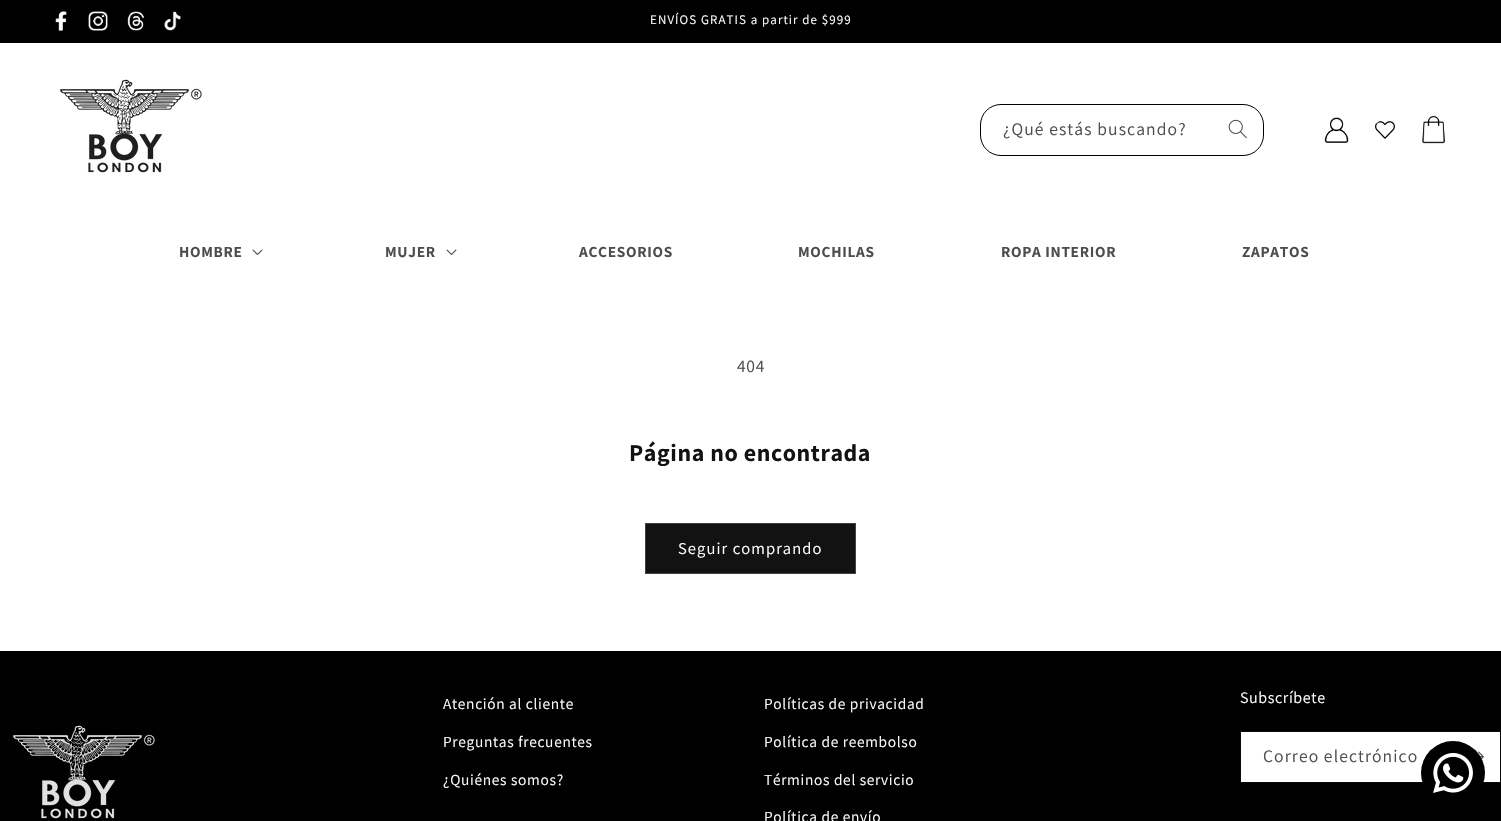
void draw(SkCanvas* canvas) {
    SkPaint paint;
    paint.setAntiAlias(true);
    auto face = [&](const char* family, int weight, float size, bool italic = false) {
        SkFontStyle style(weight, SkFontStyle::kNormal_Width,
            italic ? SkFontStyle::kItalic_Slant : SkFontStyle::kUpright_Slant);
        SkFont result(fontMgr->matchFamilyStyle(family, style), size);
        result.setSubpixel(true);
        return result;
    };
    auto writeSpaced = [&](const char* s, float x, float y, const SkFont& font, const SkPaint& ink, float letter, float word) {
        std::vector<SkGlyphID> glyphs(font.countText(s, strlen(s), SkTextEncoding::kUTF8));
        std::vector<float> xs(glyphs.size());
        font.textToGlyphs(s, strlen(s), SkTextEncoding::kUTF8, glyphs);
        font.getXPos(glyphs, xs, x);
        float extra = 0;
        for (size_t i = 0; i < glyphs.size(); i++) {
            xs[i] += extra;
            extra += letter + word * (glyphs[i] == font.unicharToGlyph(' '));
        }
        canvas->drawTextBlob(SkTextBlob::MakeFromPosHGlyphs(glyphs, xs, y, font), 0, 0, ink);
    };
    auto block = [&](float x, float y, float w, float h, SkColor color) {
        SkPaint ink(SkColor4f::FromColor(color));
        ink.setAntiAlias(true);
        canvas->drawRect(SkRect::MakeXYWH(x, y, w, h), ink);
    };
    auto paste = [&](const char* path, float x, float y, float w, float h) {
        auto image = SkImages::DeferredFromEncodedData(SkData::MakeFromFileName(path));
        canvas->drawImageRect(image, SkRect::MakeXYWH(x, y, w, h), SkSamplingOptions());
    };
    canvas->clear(SK_ColorWHITE);
    block(0, 0, 1501, 43, SK_ColorBLACK);
    paste("pic1.png", 55, 11, 12, 20);
    paste("pic2.png", 88, 11, 20, 20);
    paste("pic3.png", 127, 11, 18, 20);
    paste("pic4.png", 164, 11, 17, 20);
    auto kFont1 = face("Assistant", 400, 13);
    paint.setColor(SK_ColorWHITE);
    writeSpaced("ENVÍOS GRATIS a partir de $999", 650, 24, kFont1, paint, 1.1f, 0);
    paste("pic5.png", 60, 79, 142, 94);
    paste("pic6.png", 1228, 119, 19, 20);
    paint.setStyle(SkPaint::kStroke_Style);
    paint.setStrokeWidth(1);
    paint.setColor(SK_ColorBLACK);
    canvas->drawRoundRect(SkRect::MakeXYWH(980.5f, 104.5f, 283, 51), 20.5f, 20.5f, paint);
    auto kFont2 = face("Assistant", 400, 17.6f);
    paint.setStyle(SkPaint::kFill_Style);
    paint.setColor(SkColorSetRGB(77, 77, 77));
    writeSpaced("¿Qué estás buscando?", 1003, 135, kFont2, paint, 1.1f, 0);
    paste("pic7.png", 1324, 117, 25, 26);
    paste("pic8.png", 1375, 121, 20, 18);
    paste("pic9.png", 1422, 115, 23, 29);
    auto kFont3 = face("Assistant", 700, 15.4f);
    writeSpaced("HOMBRE", 179, 257, kFont3, paint, 0.7f, 0);
    paste("pic10.png", 252, 249, 11, 6);
    writeSpaced("MUJER", 385, 257, kFont3, paint, 0.7f, 0);
    paste("pic10.png", 446, 249, 11, 6);
    writeSpaced("ACCESORIOS", 579, 257, kFont3, paint, 0.7f, 0);
    writeSpaced("MOCHILAS", 798, 257, kFont3, paint, 0.7f, 0);
    writeSpaced("ROPA INTERIOR", 1001, 257, kFont3, paint, 0.7f, 0);
    writeSpaced("ZAPATOS", 1242, 257, kFont3, paint, 0.7f, 0);
    writeSpaced("404", 737, 372, kFont2, paint, 0.7f, 0);
    auto kFont4 = face("Assistant", 700, 24);
    paint.setColor(SkColorSetRGB(18, 18, 18));
    writeSpaced("Página no encontrada", 629, 461, kFont4, paint, 0.6f, 0);
    block(646, 524, 209, 49, SkColorSetRGB(18, 18, 18));
    paint.setStyle(SkPaint::kStroke_Style);
    paint.setColor(SkColorSetRGB(65, 65, 65));
    canvas->drawRect(SkRect::MakeXYWH(645.5f, 523.5f, 210, 50), paint);
    auto kFont5 = face("Assistant", 400, 16.5f);
    paint.setStyle(SkPaint::kFill_Style);
    paint.setColor(SK_ColorWHITE);
    writeSpaced("Seguir comprando", 678, 554, kFont5, paint, 1.1f, 0);
    block(0, 651, 1501, 170, SK_ColorBLACK);
    paste("pic11.png", 13, 725, 142, 94);
    auto kFont6 = face("Assistant", 400, 15.4f);
    writeSpaced("Atención al cliente", 443, 709, kFont6, paint, 0.7f, 0);
    writeSpaced("Preguntas frecuentes", 443, 747, kFont6, paint, 0.7f, 0);
    writeSpaced("¿Quiénes somos?", 443, 785, kFont6, paint, 0.7f, 0);
    writeSpaced("Políticas de privacidad", 764, 709, kFont6, paint, 0.7f, 0);
    writeSpaced("Política de reembolso", 764, 747, kFont6, paint, 0.7f, 0);
    writeSpaced("Términos del servicio", 764, 785, kFont6, paint, 0.7f, 0);
    writeSpaced("Política de envío", 764, 822, kFont6, paint, 0.7f, 0);
    auto kFont7 = face("Assistant", 400, 16);
    writeSpaced("Subscríbete", 1240, 703, kFont7, paint, 0.6f, 0);
    block(1241, 732, 259, 50, SK_ColorWHITE);
    paint.setStyle(SkPaint::kStroke_Style);
    paint.setColor(SkColorSetRGB(10, 10, 10));
    canvas->drawRect(SkRect::MakeXYWH(1240.5f, 731.5f, 260, 51), paint);
    paint.setStyle(SkPaint::kFill_Style);
    paint.setColor(SkColorSetRGB(77, 77, 77));
    writeSpaced("Correo electrónico", 1263, 762, kFont2, paint, 1.1f, 0);
    paste("pic12.png", 1478, 751, 6, 9);
    paint.setColor(SK_ColorBLACK);
    canvas->drawCircle(1453, 773, 32, paint);
    paste("pic13.png", 1433, 753, 40, 40);
}
